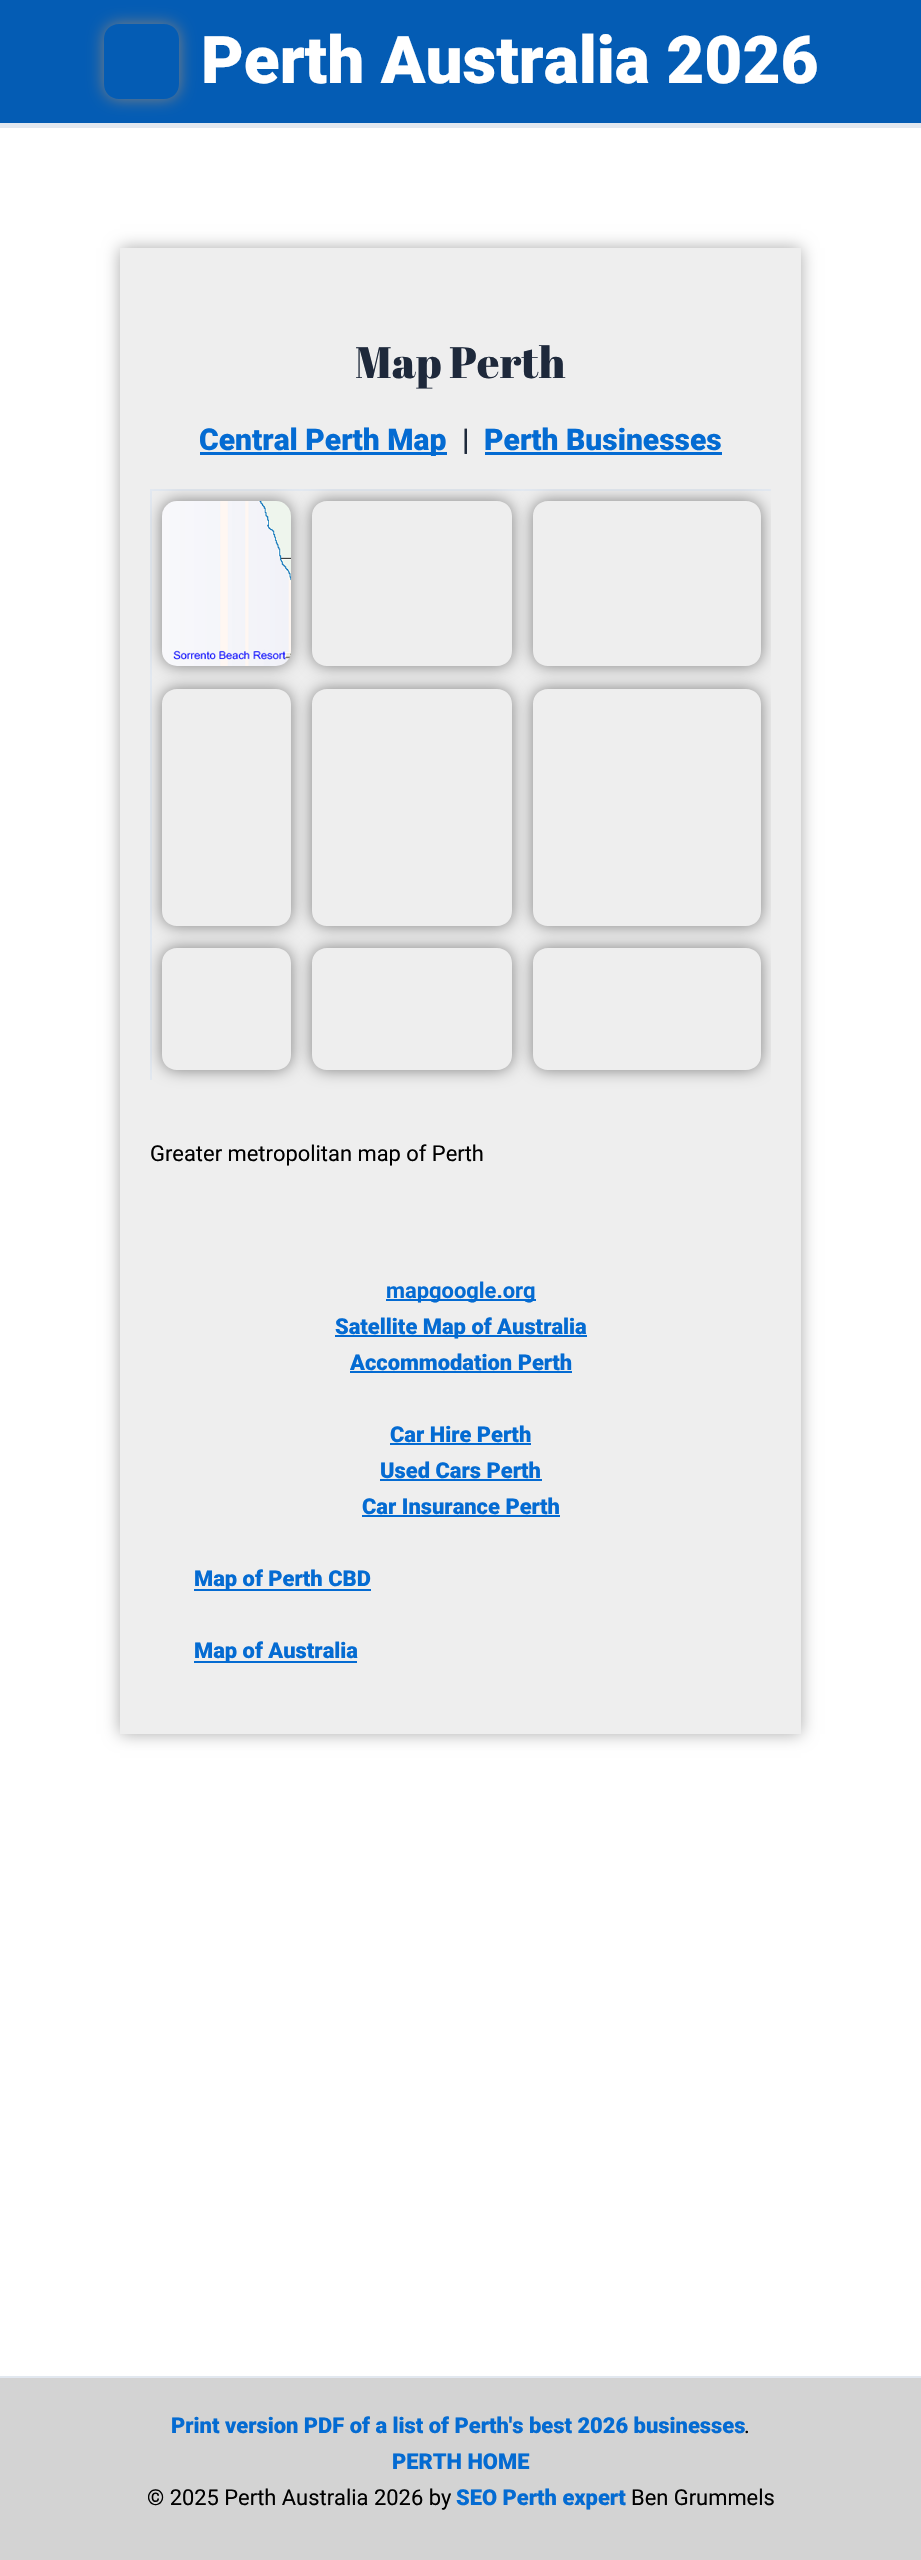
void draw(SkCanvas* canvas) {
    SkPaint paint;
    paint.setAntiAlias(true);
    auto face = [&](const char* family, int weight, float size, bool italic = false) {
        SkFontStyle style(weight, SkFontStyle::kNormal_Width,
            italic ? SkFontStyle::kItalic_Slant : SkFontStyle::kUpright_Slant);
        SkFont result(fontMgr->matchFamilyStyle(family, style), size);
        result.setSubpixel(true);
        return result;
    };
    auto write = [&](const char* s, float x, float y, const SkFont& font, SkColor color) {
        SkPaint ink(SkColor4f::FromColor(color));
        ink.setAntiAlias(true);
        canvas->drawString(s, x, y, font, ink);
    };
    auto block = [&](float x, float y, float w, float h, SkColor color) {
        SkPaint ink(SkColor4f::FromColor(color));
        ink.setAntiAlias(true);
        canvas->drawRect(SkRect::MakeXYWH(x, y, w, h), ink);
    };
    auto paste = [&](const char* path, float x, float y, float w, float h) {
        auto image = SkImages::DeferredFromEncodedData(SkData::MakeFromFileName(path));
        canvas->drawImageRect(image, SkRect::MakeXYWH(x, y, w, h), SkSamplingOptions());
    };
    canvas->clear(SK_ColorWHITE);
    block(0, 0, 921, 123, SkColorSetRGB(4, 92, 180));
    block(0, 123, 921, 5, SkColorSetRGB(226, 232, 240));
    canvas->save();
    canvas->clipPath(SkPathBuilder(SkPathFillType::kEvenOdd).moveTo(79, 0).lineTo(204, 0).lineTo(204, 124).lineTo(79, 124).close().moveTo(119, 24).lineTo(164, 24).cubicTo(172.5f, 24, 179, 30.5f, 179, 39).lineTo(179, 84).cubicTo(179, 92.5f, 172.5f, 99, 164, 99).lineTo(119, 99).cubicTo(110.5f, 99, 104, 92.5f, 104, 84).lineTo(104, 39).cubicTo(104, 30.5f, 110.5f, 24, 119, 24).close().detach(), true);
    paint.setColor(SkColorSetRGB(128, 128, 128));
    paint.setMaskFilter(SkMaskFilter::MakeBlur(kNormal_SkBlurStyle, 8));
    canvas->drawRoundRect(SkRect::MakeXYWH(104, 24, 75, 75), 15, 15, paint);
    paint.setMaskFilter(nullptr);
    canvas->restore();
    auto kFont1 = face("Roboto", 900, 65.75f);
    write("Perth Australia 2026", 201, 83, kFont1, SK_ColorWHITE);
    paint.setColor(SkColorSetRGB(170, 170, 170));
    paint.setMaskFilter(SkMaskFilter::MakeBlur(kNormal_SkBlurStyle, 8));
    canvas->drawRect(SkRect::MakeXYWH(120, 248, 681, 1486), paint);
    paint.setMaskFilter(nullptr);
    block(120, 248, 681, 1486, SkColorSetRGB(238, 238, 238));
    auto kFont2 = face("Abril Fatface", 400, 43.75f);
    write("Map Perth", 355, 378, kFont2, SkColorSetRGB(30, 41, 59));
    block(200, 452, 247, 3, SkColorSetRGB(4, 107, 210));
    auto kFont3 = face("Roboto", 900, 30);
    write("Central Perth Map", 199, 450, kFont3, SkColorSetRGB(4, 107, 210));
    auto kFont4 = face("Roboto", 600, 30);
    write("|", 462, 450, kFont4, SkColorSetRGB(30, 41, 59));
    write("Perth Businesses", 484, 450, kFont3, SkColorSetRGB(4, 107, 210));
    block(485, 452, 237, 3, SkColorSetRGB(4, 107, 210));
    block(150, 489, 621, 2, SkColorSetRGB(226, 232, 240));
    block(150, 489, 2, 591, SkColorSetRGB(226, 232, 240));
    canvas->save();
    canvas->clipRect(SkRect::MakeXYWH(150, 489, 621, 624));
    paint.setColor(SkColorSetRGB(128, 128, 128));
    paint.setMaskFilter(SkMaskFilter::MakeBlur(kNormal_SkBlurStyle, 8));
    canvas->drawRoundRect(SkRect::MakeXYWH(162, 501, 129, 165), 15, 15, paint);
    paint.setMaskFilter(nullptr);
    canvas->restore();
    paste("pic1.png", 162, 501, 129, 165);
    canvas->save();
    canvas->clipRect(SkRect::MakeXYWH(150, 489, 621, 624));
    canvas->clipPath(SkPathBuilder(SkPathFillType::kEvenOdd).moveTo(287, 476).lineTo(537, 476).lineTo(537, 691).lineTo(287, 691).close().moveTo(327, 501).lineTo(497, 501).cubicTo(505.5f, 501, 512, 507.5f, 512, 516).lineTo(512, 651).cubicTo(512, 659.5f, 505.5f, 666, 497, 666).lineTo(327, 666).cubicTo(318.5f, 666, 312, 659.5f, 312, 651).lineTo(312, 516).cubicTo(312, 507.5f, 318.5f, 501, 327, 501).close().detach(), true);
    paint.setMaskFilter(SkMaskFilter::MakeBlur(kNormal_SkBlurStyle, 8));
    canvas->drawRoundRect(SkRect::MakeXYWH(312, 501, 200, 165), 15, 15, paint);
    paint.setMaskFilter(nullptr);
    canvas->restore();
    canvas->save();
    canvas->clipRect(SkRect::MakeXYWH(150, 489, 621, 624));
    canvas->clipPath(SkPathBuilder(SkPathFillType::kEvenOdd).moveTo(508, 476).lineTo(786, 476).lineTo(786, 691).lineTo(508, 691).close().moveTo(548, 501).lineTo(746, 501).cubicTo(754.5f, 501, 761, 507.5f, 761, 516).lineTo(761, 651).cubicTo(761, 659.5f, 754.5f, 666, 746, 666).lineTo(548, 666).cubicTo(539.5f, 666, 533, 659.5f, 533, 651).lineTo(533, 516).cubicTo(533, 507.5f, 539.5f, 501, 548, 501).close().detach(), true);
    paint.setMaskFilter(SkMaskFilter::MakeBlur(kNormal_SkBlurStyle, 8));
    canvas->drawRoundRect(SkRect::MakeXYWH(533, 501, 228, 165), 15, 15, paint);
    paint.setMaskFilter(nullptr);
    canvas->restore();
    canvas->save();
    canvas->clipRect(SkRect::MakeXYWH(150, 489, 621, 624));
    canvas->clipPath(SkPathBuilder(SkPathFillType::kEvenOdd).moveTo(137, 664).lineTo(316, 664).lineTo(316, 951).lineTo(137, 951).close().moveTo(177, 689).lineTo(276, 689).cubicTo(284.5f, 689, 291, 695.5f, 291, 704).lineTo(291, 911).cubicTo(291, 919.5f, 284.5f, 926, 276, 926).lineTo(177, 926).cubicTo(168.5f, 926, 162, 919.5f, 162, 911).lineTo(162, 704).cubicTo(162, 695.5f, 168.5f, 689, 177, 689).close().detach(), true);
    paint.setMaskFilter(SkMaskFilter::MakeBlur(kNormal_SkBlurStyle, 8));
    canvas->drawRoundRect(SkRect::MakeXYWH(162, 689, 129, 237), 15, 15, paint);
    paint.setMaskFilter(nullptr);
    canvas->restore();
    canvas->save();
    canvas->clipPath(SkPathBuilder(SkPathFillType::kEvenOdd).moveTo(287, 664).lineTo(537, 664).lineTo(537, 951).lineTo(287, 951).close().moveTo(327, 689).lineTo(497, 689).cubicTo(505.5f, 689, 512, 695.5f, 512, 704).lineTo(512, 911).cubicTo(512, 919.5f, 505.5f, 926, 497, 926).lineTo(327, 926).cubicTo(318.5f, 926, 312, 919.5f, 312, 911).lineTo(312, 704).cubicTo(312, 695.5f, 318.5f, 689, 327, 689).close().detach(), true);
    paint.setMaskFilter(SkMaskFilter::MakeBlur(kNormal_SkBlurStyle, 8));
    canvas->drawRoundRect(SkRect::MakeXYWH(312, 689, 200, 237), 15, 15, paint);
    paint.setMaskFilter(nullptr);
    canvas->restore();
    canvas->save();
    canvas->clipRect(SkRect::MakeXYWH(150, 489, 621, 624));
    canvas->clipPath(SkPathBuilder(SkPathFillType::kEvenOdd).moveTo(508, 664).lineTo(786, 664).lineTo(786, 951).lineTo(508, 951).close().moveTo(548, 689).lineTo(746, 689).cubicTo(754.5f, 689, 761, 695.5f, 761, 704).lineTo(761, 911).cubicTo(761, 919.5f, 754.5f, 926, 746, 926).lineTo(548, 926).cubicTo(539.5f, 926, 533, 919.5f, 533, 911).lineTo(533, 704).cubicTo(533, 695.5f, 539.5f, 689, 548, 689).close().detach(), true);
    paint.setMaskFilter(SkMaskFilter::MakeBlur(kNormal_SkBlurStyle, 8));
    canvas->drawRoundRect(SkRect::MakeXYWH(533, 689, 228, 237), 15, 15, paint);
    paint.setMaskFilter(nullptr);
    canvas->restore();
    canvas->save();
    canvas->clipRect(SkRect::MakeXYWH(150, 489, 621, 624));
    canvas->clipPath(SkPathBuilder(SkPathFillType::kEvenOdd).moveTo(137, 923).lineTo(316, 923).lineTo(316, 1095).lineTo(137, 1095).close().moveTo(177, 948).lineTo(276, 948).cubicTo(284.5f, 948, 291, 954.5f, 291, 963).lineTo(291, 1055).cubicTo(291, 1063.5f, 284.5f, 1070, 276, 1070).lineTo(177, 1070).cubicTo(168.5f, 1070, 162, 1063.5f, 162, 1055).lineTo(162, 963).cubicTo(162, 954.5f, 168.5f, 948, 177, 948).close().detach(), true);
    paint.setMaskFilter(SkMaskFilter::MakeBlur(kNormal_SkBlurStyle, 8));
    canvas->drawRoundRect(SkRect::MakeXYWH(162, 948, 129, 122), 15, 15, paint);
    paint.setMaskFilter(nullptr);
    canvas->restore();
    canvas->save();
    canvas->clipPath(SkPathBuilder(SkPathFillType::kEvenOdd).moveTo(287, 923).lineTo(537, 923).lineTo(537, 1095).lineTo(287, 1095).close().moveTo(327, 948).lineTo(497, 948).cubicTo(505.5f, 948, 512, 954.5f, 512, 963).lineTo(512, 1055).cubicTo(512, 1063.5f, 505.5f, 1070, 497, 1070).lineTo(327, 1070).cubicTo(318.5f, 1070, 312, 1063.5f, 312, 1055).lineTo(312, 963).cubicTo(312, 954.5f, 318.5f, 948, 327, 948).close().detach(), true);
    paint.setMaskFilter(SkMaskFilter::MakeBlur(kNormal_SkBlurStyle, 8));
    canvas->drawRoundRect(SkRect::MakeXYWH(312, 948, 200, 122), 15, 15, paint);
    paint.setMaskFilter(nullptr);
    canvas->restore();
    canvas->save();
    canvas->clipRect(SkRect::MakeXYWH(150, 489, 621, 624));
    canvas->clipPath(SkPathBuilder(SkPathFillType::kEvenOdd).moveTo(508, 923).lineTo(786, 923).lineTo(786, 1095).lineTo(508, 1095).close().moveTo(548, 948).lineTo(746, 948).cubicTo(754.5f, 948, 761, 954.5f, 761, 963).lineTo(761, 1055).cubicTo(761, 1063.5f, 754.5f, 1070, 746, 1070).lineTo(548, 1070).cubicTo(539.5f, 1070, 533, 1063.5f, 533, 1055).lineTo(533, 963).cubicTo(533, 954.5f, 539.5f, 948, 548, 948).close().detach(), true);
    paint.setMaskFilter(SkMaskFilter::MakeBlur(kNormal_SkBlurStyle, 8));
    canvas->drawRoundRect(SkRect::MakeXYWH(533, 948, 228, 122), 15, 15, paint);
    paint.setMaskFilter(nullptr);
    canvas->restore();
    auto kFont5 = face("Roboto", 400, 21.9f);
    write("Greater metropolitan map of Perth", 150, 1161, kFont5, SK_ColorBLACK);
    block(386, 1299, 150, 2, SkColorSetRGB(4, 107, 210));
    auto kFont6 = face("Roboto", 700, 21.9f);
    write("mapgoogle.org", 386, 1298, kFont6, SkColorSetRGB(4, 107, 210));
    block(335, 1335, 252, 2, SkColorSetRGB(4, 107, 210));
    auto kFont7 = face("Roboto", 900, 21.9f);
    write("Satellite Map of Australia", 335, 1334, kFont7, SkColorSetRGB(4, 107, 210));
    write("Accommodation Perth", 350, 1370, kFont7, SkColorSetRGB(4, 107, 210));
    block(350, 1371, 222, 2, SkColorSetRGB(4, 107, 210));
    write("Car Hire Perth", 390, 1442, kFont7, SkColorSetRGB(4, 107, 210));
    block(390, 1443, 141, 2, SkColorSetRGB(4, 107, 210));
    write("Used Cars Perth", 380, 1478, kFont7, SkColorSetRGB(4, 107, 210));
    block(380, 1479, 162, 2, SkColorSetRGB(4, 107, 210));
    write("Car Insurance Perth", 362, 1514, kFont7, SkColorSetRGB(4, 107, 210));
    block(362, 1515, 198, 2, SkColorSetRGB(4, 107, 210));
    block(194, 1589, 177, 2, SkColorSetRGB(4, 107, 210));
    write("Map of Perth CBD", 194, 1586, kFont7, SkColorSetRGB(4, 107, 210));
    block(194, 1661, 163, 2, SkColorSetRGB(4, 107, 210));
    write("Map of Australia", 194, 1658, kFont7, SkColorSetRGB(4, 107, 210));
    block(0, 2378, 921, 182, SkColorSetRGB(211, 211, 211));
    block(0, 2376, 921, 2, SkColorSetRGB(226, 232, 240));
    write("Print version PDF of a list of Perth's best 2026 businesses", 171, 2433, kFont7, SkColorSetRGB(4, 107, 210));
    write(".", 744, 2433, kFont5, SK_ColorBLACK);
    write("PERTH HOME", 392, 2469, kFont7, SkColorSetRGB(4, 107, 210));
    write("© 2025 Perth Australia 2026 by", 147, 2505, kFont5, SK_ColorBLACK);
    write("SEO Perth expert", 456, 2505, kFont7, SkColorSetRGB(4, 107, 210));
    write("Ben Grummels", 631, 2505, kFont5, SK_ColorBLACK);
}
